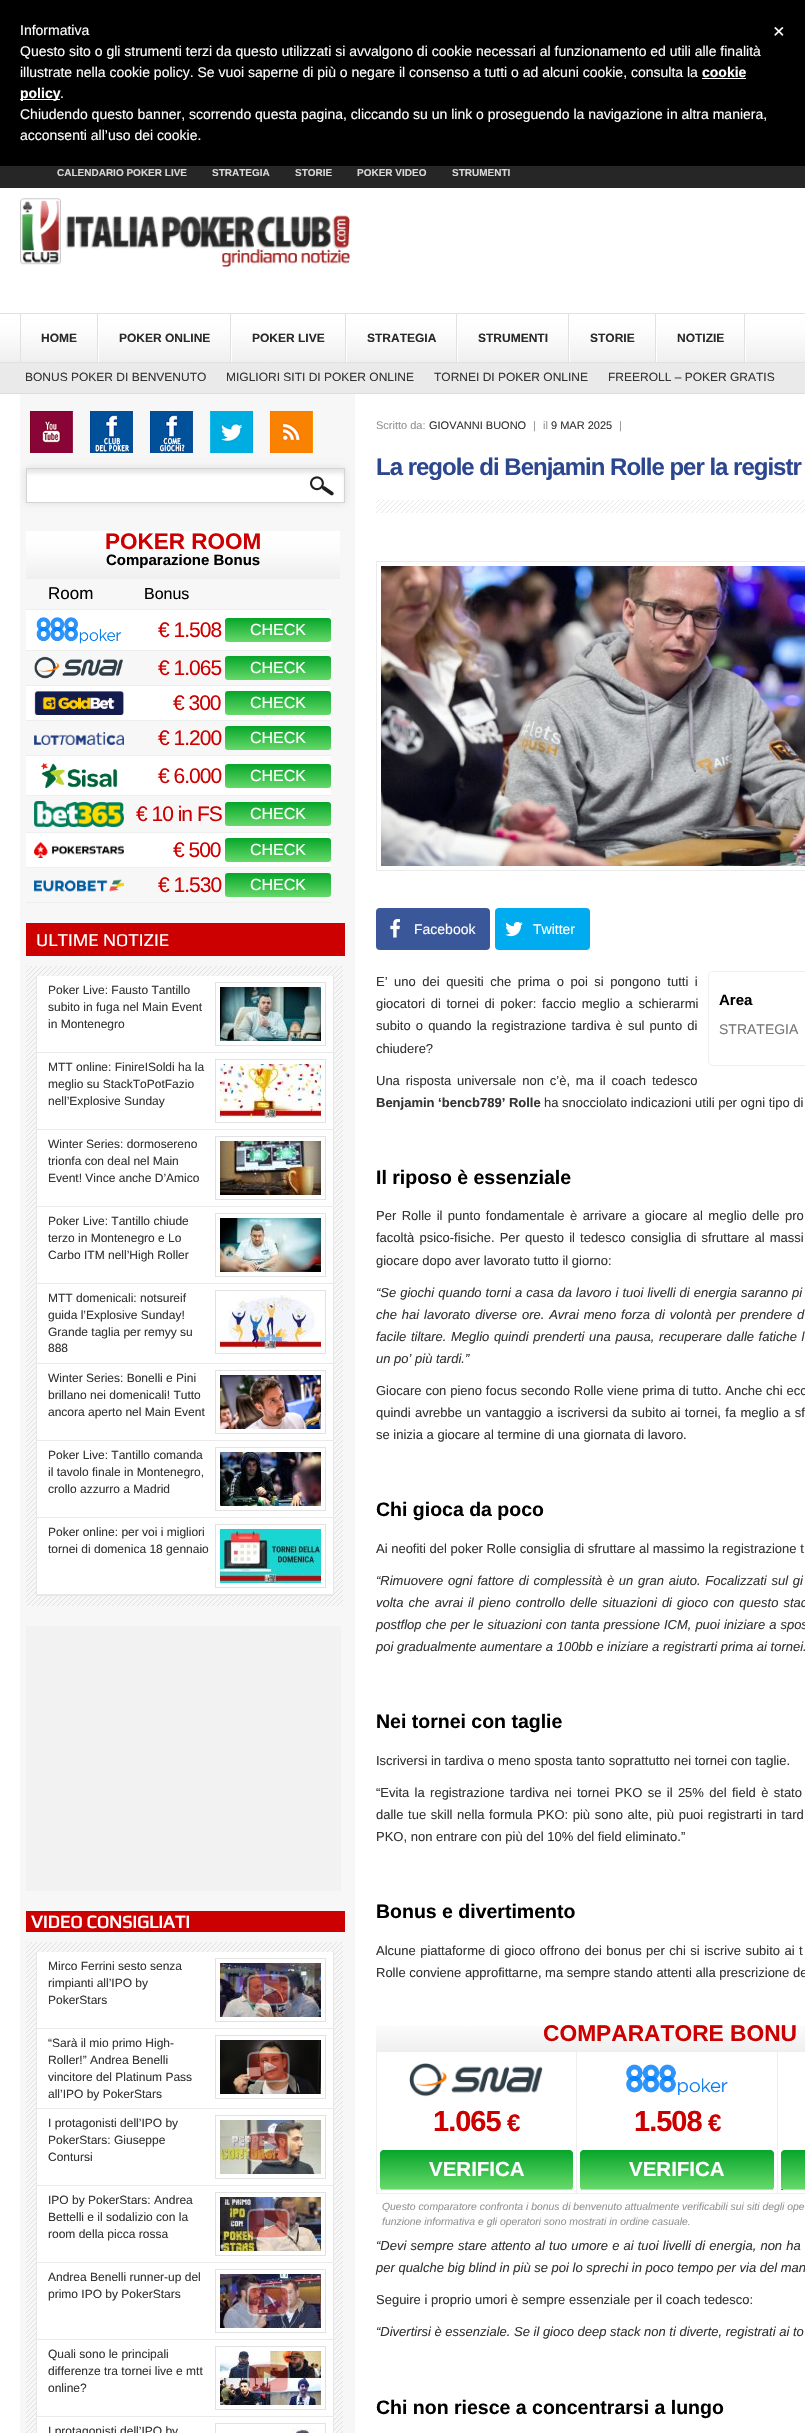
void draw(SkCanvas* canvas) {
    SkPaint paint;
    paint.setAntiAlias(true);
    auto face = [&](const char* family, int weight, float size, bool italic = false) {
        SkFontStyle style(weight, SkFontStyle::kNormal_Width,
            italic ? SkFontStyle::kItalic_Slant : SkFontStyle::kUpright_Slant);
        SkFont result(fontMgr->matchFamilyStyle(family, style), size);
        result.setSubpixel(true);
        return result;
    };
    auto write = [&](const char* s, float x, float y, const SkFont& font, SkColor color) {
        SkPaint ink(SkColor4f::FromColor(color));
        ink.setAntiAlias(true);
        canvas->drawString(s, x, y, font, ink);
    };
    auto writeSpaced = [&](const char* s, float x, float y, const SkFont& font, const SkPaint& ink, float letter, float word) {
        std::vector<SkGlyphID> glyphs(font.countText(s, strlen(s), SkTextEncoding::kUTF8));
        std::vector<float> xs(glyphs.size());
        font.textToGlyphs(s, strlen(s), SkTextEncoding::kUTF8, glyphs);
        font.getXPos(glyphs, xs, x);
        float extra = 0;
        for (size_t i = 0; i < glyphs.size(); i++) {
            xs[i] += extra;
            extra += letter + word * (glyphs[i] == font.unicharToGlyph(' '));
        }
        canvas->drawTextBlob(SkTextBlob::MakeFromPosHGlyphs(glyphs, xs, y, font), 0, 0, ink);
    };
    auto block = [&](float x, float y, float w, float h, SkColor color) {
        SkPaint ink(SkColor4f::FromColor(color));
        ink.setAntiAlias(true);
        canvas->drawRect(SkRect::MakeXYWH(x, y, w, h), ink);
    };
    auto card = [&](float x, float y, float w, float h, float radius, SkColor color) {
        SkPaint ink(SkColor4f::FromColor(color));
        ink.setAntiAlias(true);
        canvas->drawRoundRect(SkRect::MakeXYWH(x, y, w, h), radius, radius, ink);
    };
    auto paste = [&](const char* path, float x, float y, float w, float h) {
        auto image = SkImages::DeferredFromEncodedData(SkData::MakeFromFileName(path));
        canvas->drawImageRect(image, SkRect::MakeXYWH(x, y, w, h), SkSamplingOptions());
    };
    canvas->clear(SkColorSetRGB(38, 38, 38));
    block(0, 0, 805, 166, SK_ColorBLACK);
    auto kFont1 = face("Liberation Sans", 400, 14);
    write("Informativa", 20, 35, kFont1, SK_ColorWHITE);
    write("Questo sito o gli strumenti terzi da questo utilizzati si avvalgono di cookie necessari al funzionamento ed utili alle finalità", 20, 56, kFont1, SK_ColorWHITE);
    write("illustrate nella cookie policy. Se vuoi saperne di più o negare il consenso a tutti o ad alcuni cookie, consulta la", 20, 77, kFont1, SK_ColorWHITE);
    auto kFont2 = face("Liberation Sans", 700, 14);
    write("cookie", 702, 77, kFont2, SK_ColorWHITE);
    block(702, 78, 44, 1, SK_ColorWHITE);
    block(20, 99, 40, 1, SK_ColorWHITE);
    write("policy", 20, 98, kFont2, SK_ColorWHITE);
    write(".", 60, 98, kFont1, SK_ColorWHITE);
    write("Chiudendo questo banner, scorrendo questa pagina, cliccando su un link o proseguendo la navigazione in altra maniera,", 20, 119, kFont1, SK_ColorWHITE);
    write("acconsenti all’uso dei cookie.", 20, 140, kFont1, SK_ColorWHITE);
    auto kFont3 = face("Liberation Sans", 400, 20);
    write("×", 773, 38, kFont3, SK_ColorWHITE);
    auto kFont4 = face("Liberation Sans", 700, 10);
    write("CALENDARIO POKER LIVE", 57, 176, kFont4, SkColorSetRGB(216, 216, 216));
    write("STRATEGIA", 212, 176, kFont4, SkColorSetRGB(216, 216, 216));
    write("STORIE", 295, 176, kFont4, SkColorSetRGB(216, 216, 216));
    write("POKER VIDEO", 357, 176, kFont4, SkColorSetRGB(216, 216, 216));
    write("STRUMENTI", 452, 176, kFont4, SkColorSetRGB(216, 216, 216));
    block(0, 188, 805, 125, SK_ColorWHITE);
    paste("pic1.png", 20, 198, 330, 69);
    paste("pic2.png", 0, 314, 805, 48);
    block(0, 313, 805, 1, SkColorSetRGB(225, 225, 225));
    block(0, 362, 805, 1, SkColorSetRGB(225, 225, 225));
    block(98, 331, 1, 31, SK_ColorWHITE);
    block(20, 314, 1, 48, SkColorSetRGB(225, 225, 225));
    block(97, 314, 1, 48, SkColorSetRGB(225, 225, 225));
    auto kFont5 = face("Liberation Sans", 700, 12);
    write("HOME", 41, 342, kFont5, SkColorSetRGB(41, 41, 41));
    block(231, 331, 1, 31, SK_ColorWHITE);
    block(230, 314, 1, 48, SkColorSetRGB(225, 225, 225));
    write("POKER ONLINE", 119, 342, kFont5, SkColorSetRGB(41, 41, 41));
    block(346, 331, 1, 31, SK_ColorWHITE);
    block(345, 314, 1, 48, SkColorSetRGB(225, 225, 225));
    write("POKER LIVE", 252, 342, kFont5, SkColorSetRGB(41, 41, 41));
    block(457, 331, 1, 31, SK_ColorWHITE);
    block(456, 314, 1, 48, SkColorSetRGB(225, 225, 225));
    write("STRATEGIA", 367, 342, kFont5, SkColorSetRGB(41, 41, 41));
    block(569, 331, 1, 31, SK_ColorWHITE);
    block(568, 314, 1, 48, SkColorSetRGB(225, 225, 225));
    write("STRUMENTI", 478, 342, kFont5, SkColorSetRGB(41, 41, 41));
    block(656, 331, 1, 31, SK_ColorWHITE);
    block(655, 314, 1, 48, SkColorSetRGB(225, 225, 225));
    write("STORIE", 590, 342, kFont5, SkColorSetRGB(41, 41, 41));
    block(745, 331, 1, 31, SK_ColorWHITE);
    block(744, 314, 1, 48, SkColorSetRGB(225, 225, 225));
    write("NOTIZIE", 677, 342, kFont5, SkColorSetRGB(41, 41, 41));
    block(0, 363, 805, 30, SkColorSetRGB(234, 234, 234));
    block(0, 393, 805, 1, SkColorSetRGB(221, 221, 221));
    auto kFont6 = face("Liberation Sans", 400, 12);
    write("BONUS POKER DI BENVENUTO", 25, 381, kFont6, SkColorSetRGB(52, 52, 52));
    write("MIGLIORI SITI DI POKER ONLINE", 226, 381, kFont6, SkColorSetRGB(52, 52, 52));
    write("TORNEI DI POKER ONLINE", 434, 381, kFont6, SkColorSetRGB(52, 52, 52));
    write("FREEROLL – POKER GRATIS", 608, 381, kFont6, SkColorSetRGB(52, 52, 52));
    block(0, 394, 805, 2039, SK_ColorWHITE);
    block(20, 394, 335, 2039, SkColorSetRGB(247, 247, 247));
    paste("pic3.png", 30, 411, 43, 42);
    paste("pic4.png", 90, 411, 43, 42);
    paste("pic5.png", 150, 411, 43, 42);
    paste("pic6.png", 210, 411, 43, 42);
    paste("pic7.png", 270, 411, 43, 42);
    paint.setColor(SkColorSetRGB(221, 221, 221));
    paint.setMaskFilter(SkMaskFilter::MakeBlur(kNormal_SkBlurStyle, 3.5f));
    canvas->drawRect(SkRect::MakeXYWH(26, 468, 319, 35), paint);
    paint.setMaskFilter(nullptr);
    paste("pic8.png", 27, 469, 265, 33);
    block(26, 468, 266, 1, SkColorSetRGB(212, 212, 212));
    block(26, 502, 266, 1, SkColorSetRGB(212, 212, 212));
    block(26, 468, 1, 35, SkColorSetRGB(212, 212, 212));
    paste("pic9.png", 292, 468, 53, 35);
    paste("pic10.png", 26, 531, 314, 48);
    auto kFont7 = face("Liberation Sans", 700, 22.5f);
    write("POKER ROOM", 105, 549, kFont7, SkColorSetRGB(204, 0, 0));
    auto kFont8 = face("Liberation Sans", 700, 15);
    write("Comparazione Bonus", 106, 565, kFont8, SK_ColorBLACK);
    block(26, 609, 300, 1, SkColorSetRGB(237, 238, 238));
    auto kFont9 = face("Liberation Sans", 400, 17);
    write("Room", 48, 599, kFont9, SK_ColorBLACK);
    auto kFont10 = face("Liberation Sans", 400, 16);
    write("Bonus", 144, 599, kFont10, SK_ColorBLACK);
    block(26, 610, 305, 40, SK_ColorWHITE);
    block(26, 650, 305, 1, SkColorSetRGB(237, 238, 238));
    paste("pic11.png", 36, 617, 86, 27);
    auto kFont11 = face("Liberation Sans", 400, 21);
    paint.setColor(SkColorSetRGB(204, 0, 0));
    writeSpaced("€ 1.508", 158, 637, kFont11, paint, -1, 0);
    {
        const SkColor colors[] = {SkColorSetRGB(102, 217, 106), SkColorSetRGB(6, 165, 42)};
        const float stops[] = {0, 1};
        const SkPoint ends[] = {{278, 642}, {278, 618}};
        paint.setShader(SkGradientShader::MakeLinear(ends, colors, stops, 2, SkTileMode::kClamp));
        paint.setAlpha(255);
    }
    canvas->drawRoundRect(SkRect::MakeXYWH(225, 618, 106, 24), 3, 3, paint);
    write("CHECK", 250, 635, kFont10, SK_ColorWHITE);
    block(26, 685, 305, 1, SkColorSetRGB(237, 238, 238));
    paste("pic12.png", 34, 656, 89, 23);
    paint.setShader(nullptr);
    paint.setColor(SkColorSetRGB(204, 0, 0));
    writeSpaced("€ 1.065", 158, 675, kFont11, paint, -1, 0);
    {
        const SkColor colors[] = {SkColorSetRGB(102, 217, 106), SkColorSetRGB(6, 165, 42)};
        const float stops[] = {0, 1};
        const SkPoint ends[] = {{278, 680}, {278, 656}};
        paint.setShader(SkGradientShader::MakeLinear(ends, colors, stops, 2, SkTileMode::kClamp));
        paint.setAlpha(255);
    }
    canvas->drawRoundRect(SkRect::MakeXYWH(225, 656, 106, 24), 3, 3, paint);
    write("CHECK", 250, 673, kFont10, SK_ColorWHITE);
    block(26, 686, 305, 34, SK_ColorWHITE);
    block(26, 720, 305, 1, SkColorSetRGB(237, 238, 238));
    paste("pic13.png", 34, 691, 90, 24);
    paint.setShader(nullptr);
    paint.setColor(SkColorSetRGB(204, 0, 0));
    writeSpaced("€ 300", 173, 710, kFont11, paint, -1, 0);
    {
        const SkColor colors[] = {SkColorSetRGB(102, 217, 106), SkColorSetRGB(6, 165, 42)};
        const float stops[] = {0, 1};
        const SkPoint ends[] = {{278, 715}, {278, 691}};
        paint.setShader(SkGradientShader::MakeLinear(ends, colors, stops, 2, SkTileMode::kClamp));
        paint.setAlpha(255);
    }
    canvas->drawRoundRect(SkRect::MakeXYWH(225, 691, 106, 24), 3, 3, paint);
    write("CHECK", 250, 708, kFont10, SK_ColorWHITE);
    block(26, 755, 305, 1, SkColorSetRGB(237, 238, 238));
    paste("pic14.png", 34, 732, 90, 13);
    paint.setShader(nullptr);
    paint.setColor(SkColorSetRGB(204, 0, 0));
    writeSpaced("€ 1.200", 158, 745, kFont11, paint, -1, 0);
    {
        const SkColor colors[] = {SkColorSetRGB(102, 217, 106), SkColorSetRGB(6, 165, 42)};
        const float stops[] = {0, 1};
        const SkPoint ends[] = {{278, 750}, {278, 726}};
        paint.setShader(SkGradientShader::MakeLinear(ends, colors, stops, 2, SkTileMode::kClamp));
        paint.setAlpha(255);
    }
    canvas->drawRoundRect(SkRect::MakeXYWH(225, 726, 106, 24), 3, 3, paint);
    write("CHECK", 250, 743, kFont10, SK_ColorWHITE);
    block(26, 756, 305, 39, SK_ColorWHITE);
    block(26, 795, 305, 1, SkColorSetRGB(237, 238, 238));
    paste("pic15.png", 41, 763, 77, 26);
    paint.setShader(nullptr);
    paint.setColor(SkColorSetRGB(204, 0, 0));
    writeSpaced("€ 6.000", 158, 783, kFont11, paint, -1, 0);
    {
        const SkColor colors[] = {SkColorSetRGB(102, 217, 106), SkColorSetRGB(6, 165, 42)};
        const float stops[] = {0, 1};
        const SkPoint ends[] = {{278, 788}, {278, 764}};
        paint.setShader(SkGradientShader::MakeLinear(ends, colors, stops, 2, SkTileMode::kClamp));
        paint.setAlpha(255);
    }
    canvas->drawRoundRect(SkRect::MakeXYWH(225, 764, 106, 24), 3, 3, paint);
    write("CHECK", 250, 781, kFont10, SK_ColorWHITE);
    block(26, 832, 305, 1, SkColorSetRGB(237, 238, 238));
    paste("pic16.png", 34, 801, 90, 26);
    paint.setShader(nullptr);
    paint.setColor(SkColorSetRGB(204, 0, 0));
    writeSpaced("€ 10 in FS", 136, 821, kFont11, paint, -1, 0);
    {
        const SkColor colors[] = {SkColorSetRGB(102, 217, 106), SkColorSetRGB(6, 165, 42)};
        const float stops[] = {0, 1};
        const SkPoint ends[] = {{278, 826}, {278, 802}};
        paint.setShader(SkGradientShader::MakeLinear(ends, colors, stops, 2, SkTileMode::kClamp));
        paint.setAlpha(255);
    }
    canvas->drawRoundRect(SkRect::MakeXYWH(225, 802, 106, 24), 3, 3, paint);
    write("CHECK", 250, 819, kFont10, SK_ColorWHITE);
    block(26, 833, 305, 34, SK_ColorWHITE);
    block(26, 867, 305, 1, SkColorSetRGB(237, 238, 238));
    paste("pic17.png", 34, 842, 90, 16);
    paint.setShader(nullptr);
    paint.setColor(SkColorSetRGB(204, 0, 0));
    writeSpaced("€ 500", 173, 857, kFont11, paint, -1, 0);
    {
        const SkColor colors[] = {SkColorSetRGB(102, 217, 106), SkColorSetRGB(6, 165, 42)};
        const float stops[] = {0, 1};
        const SkPoint ends[] = {{278, 862}, {278, 838}};
        paint.setShader(SkGradientShader::MakeLinear(ends, colors, stops, 2, SkTileMode::kClamp));
        paint.setAlpha(255);
    }
    canvas->drawRoundRect(SkRect::MakeXYWH(225, 838, 106, 24), 3, 3, paint);
    write("CHECK", 250, 855, kFont10, SK_ColorWHITE);
    block(26, 902, 305, 1, SkColorSetRGB(237, 238, 238));
    paste("pic18.png", 34, 879, 90, 13);
    paint.setShader(nullptr);
    paint.setColor(SkColorSetRGB(204, 0, 0));
    writeSpaced("€ 1.530", 158, 892, kFont11, paint, -1, 0);
    {
        const SkColor colors[] = {SkColorSetRGB(102, 217, 106), SkColorSetRGB(6, 165, 42)};
        const float stops[] = {0, 1};
        const SkPoint ends[] = {{278, 897}, {278, 873}};
        paint.setShader(SkGradientShader::MakeLinear(ends, colors, stops, 2, SkTileMode::kClamp));
        paint.setAlpha(255);
    }
    canvas->drawRoundRect(SkRect::MakeXYWH(225, 873, 106, 24), 3, 3, paint);
    write("CHECK", 250, 890, kFont10, SK_ColorWHITE);
    block(26, 923, 319, 33, SkColorSetRGB(204, 0, 0));
    auto kFont12 = face("Play", 400, 18);
    write("ULTIME NOTIZIE", 36, 946, kFont12, SK_ColorWHITE);
    paste("pic19.png", 26, 966, 317, 640);
    block(37, 976, 296, 618, SK_ColorWHITE);
    block(333, 976, 1, 620, SkColorSetRGB(231, 231, 231));
    block(36, 1595, 298, 1, SkColorSetRGB(231, 231, 231));
    block(36, 976, 1, 620, SkColorSetRGB(231, 231, 231));
    block(37, 1052, 296, 1, SkColorSetRGB(234, 234, 234));
    write("Poker Live: Fausto Tantillo", 48, 994, kFont6, SkColorSetRGB(52, 52, 52));
    write("subito in fuga nel Main Event", 48, 1011, kFont6, SkColorSetRGB(52, 52, 52));
    write("in Montenegro", 48, 1028, kFont6, SkColorSetRGB(52, 52, 52));
    paint.setStyle(SkPaint::kStroke_Style);
    paint.setStrokeWidth(1);
    paint.setShader(nullptr);
    paint.setColor(SkColorSetRGB(226, 226, 226));
    canvas->drawRect(SkRect::MakeXYWH(215.5f, 982.5f, 110, 63), paint);
    paste("pic20.png", 220, 987, 101, 54);
    block(37, 1129, 296, 1, SkColorSetRGB(234, 234, 234));
    write("MTT online: FinireISoldi ha la", 48, 1071, kFont6, SkColorSetRGB(52, 52, 52));
    write("meglio su StackToPotFazio", 48, 1088, kFont6, SkColorSetRGB(52, 52, 52));
    write("nell’Explosive Sunday", 48, 1105, kFont6, SkColorSetRGB(52, 52, 52));
    canvas->drawRect(SkRect::MakeXYWH(215.5f, 1059.5f, 110, 63), paint);
    paste("pic21.png", 220, 1064, 101, 54);
    block(37, 1206, 296, 1, SkColorSetRGB(234, 234, 234));
    write("Winter Series: dormosereno", 48, 1148, kFont6, SkColorSetRGB(52, 52, 52));
    write("trionfa con deal nel Main", 48, 1165, kFont6, SkColorSetRGB(52, 52, 52));
    write("Event! Vince anche D’Amico", 48, 1182, kFont6, SkColorSetRGB(52, 52, 52));
    canvas->drawRect(SkRect::MakeXYWH(215.5f, 1136.5f, 110, 63), paint);
    paste("pic22.png", 220, 1141, 101, 54);
    block(37, 1283, 296, 1, SkColorSetRGB(234, 234, 234));
    write("Poker Live: Tantillo chiude", 48, 1225, kFont6, SkColorSetRGB(52, 52, 52));
    write("terzo in Montenegro e Lo", 48, 1242, kFont6, SkColorSetRGB(52, 52, 52));
    write("Carbo ITM nell’High Roller", 48, 1259, kFont6, SkColorSetRGB(52, 52, 52));
    canvas->drawRect(SkRect::MakeXYWH(215.5f, 1213.5f, 110, 63), paint);
    paste("pic23.png", 220, 1218, 101, 54);
    block(37, 1363, 296, 1, SkColorSetRGB(234, 234, 234));
    write("MTT domenicali: notsureif", 48, 1302, kFont6, SkColorSetRGB(52, 52, 52));
    write("guida l’Explosive Sunday!", 48, 1319, kFont6, SkColorSetRGB(52, 52, 52));
    write("Grande taglia per remyy su", 48, 1336, kFont6, SkColorSetRGB(52, 52, 52));
    write("888", 48, 1352, kFont6, SkColorSetRGB(52, 52, 52));
    canvas->drawRect(SkRect::MakeXYWH(215.5f, 1290.5f, 110, 63), paint);
    paste("pic24.png", 220, 1295, 101, 54);
    block(37, 1440, 296, 1, SkColorSetRGB(234, 234, 234));
    write("Winter Series: Bonelli e Pini", 48, 1382, kFont6, SkColorSetRGB(52, 52, 52));
    write("brillano nei domenicali! Tutto", 48, 1399, kFont6, SkColorSetRGB(52, 52, 52));
    write("ancora aperto nel Main Event", 48, 1416, kFont6, SkColorSetRGB(52, 52, 52));
    canvas->drawRect(SkRect::MakeXYWH(215.5f, 1370.5f, 110, 63), paint);
    paste("pic25.png", 220, 1375, 101, 54);
    block(37, 1517, 296, 1, SkColorSetRGB(234, 234, 234));
    write("Poker Live: Tantillo comanda", 48, 1459, kFont6, SkColorSetRGB(52, 52, 52));
    write("il tavolo finale in Montenegro,", 48, 1476, kFont6, SkColorSetRGB(52, 52, 52));
    write("crollo azzurro a Madrid", 48, 1493, kFont6, SkColorSetRGB(52, 52, 52));
    canvas->drawRect(SkRect::MakeXYWH(215.5f, 1447.5f, 110, 63), paint);
    paste("pic26.png", 220, 1452, 101, 54);
    block(37, 1594, 296, 1, SkColorSetRGB(234, 234, 234));
    write("Poker online: per voi i migliori", 48, 1536, kFont6, SkColorSetRGB(52, 52, 52));
    write("tornei di domenica 18 gennaio", 48, 1553, kFont6, SkColorSetRGB(52, 52, 52));
    canvas->drawRect(SkRect::MakeXYWH(215.5f, 1524.5f, 110, 63), paint);
    paste("pic27.png", 220, 1529, 101, 54);
    block(26, 1626, 315, 265, SkColorSetRGB(242, 242, 242));
    block(26, 1911, 319, 21, SkColorSetRGB(204, 0, 0));
    auto kFont13 = face("Play", 700, 18);
    write("VIDEO CONSIGLIATI", 31, 1928, kFont13, SK_ColorWHITE);
    paste("pic28.png", 26, 1942, 317, 491);
    block(37, 1952, 296, 481, SK_ColorWHITE);
    block(333, 1952, 1, 481, SkColorSetRGB(231, 231, 231));
    block(36, 1952, 1, 481, SkColorSetRGB(231, 231, 231));
    block(37, 2028, 296, 1, SkColorSetRGB(234, 234, 234));
    write("Mirco Ferrini sesto senza", 48, 1970, kFont6, SkColorSetRGB(52, 52, 52));
    write("rimpianti all’IPO by", 48, 1987, kFont6, SkColorSetRGB(52, 52, 52));
    write("PokerStars", 48, 2004, kFont6, SkColorSetRGB(52, 52, 52));
    canvas->drawRect(SkRect::MakeXYWH(215.5f, 1958.5f, 110, 63), paint);
    paste("pic29.png", 220, 1963, 101, 54);
    paste("pic30.png", 247, 1974, 43, 32);
    block(37, 2108, 296, 1, SkColorSetRGB(234, 234, 234));
    write("“Sarà il mio primo High-", 48, 2047, kFont6, SkColorSetRGB(52, 52, 52));
    write("Roller!” Andrea Benelli", 48, 2064, kFont6, SkColorSetRGB(52, 52, 52));
    write("vincitore del Platinum Pass", 48, 2081, kFont6, SkColorSetRGB(52, 52, 52));
    write("all’IPO by PokerStars", 48, 2098, kFont6, SkColorSetRGB(52, 52, 52));
    canvas->drawRect(SkRect::MakeXYWH(215.5f, 2035.5f, 110, 63), paint);
    paste("pic31.png", 220, 2040, 101, 54);
    paste("pic32.png", 246, 2051, 44, 32);
    block(37, 2185, 296, 1, SkColorSetRGB(234, 234, 234));
    write("I protagonisti dell’IPO by", 48, 2127, kFont6, SkColorSetRGB(52, 52, 52));
    write("PokerStars: Giuseppe", 48, 2144, kFont6, SkColorSetRGB(52, 52, 52));
    write("Contursi", 48, 2161, kFont6, SkColorSetRGB(52, 52, 52));
    canvas->drawRect(SkRect::MakeXYWH(215.5f, 2115.5f, 110, 63), paint);
    paste("pic33.png", 220, 2120, 101, 54);
    paste("pic34.png", 247, 2131, 43, 32);
    block(37, 2262, 296, 1, SkColorSetRGB(234, 234, 234));
    write("IPO by PokerStars: Andrea", 48, 2204, kFont6, SkColorSetRGB(52, 52, 52));
    write("Bettelli e il sodalizio con la", 48, 2221, kFont6, SkColorSetRGB(52, 52, 52));
    write("room della picca rossa", 48, 2238, kFont6, SkColorSetRGB(52, 52, 52));
    canvas->drawRect(SkRect::MakeXYWH(215.5f, 2192.5f, 110, 63), paint);
    paste("pic35.png", 220, 2197, 101, 54);
    paste("pic36.png", 246, 2208, 44, 32);
    block(37, 2339, 296, 1, SkColorSetRGB(234, 234, 234));
    write("Andrea Benelli runner-up del", 48, 2281, kFont6, SkColorSetRGB(52, 52, 52));
    write("primo IPO by PokerStars", 48, 2298, kFont6, SkColorSetRGB(52, 52, 52));
    canvas->drawRect(SkRect::MakeXYWH(215.5f, 2269.5f, 110, 63), paint);
    paste("pic37.png", 220, 2274, 101, 54);
    paste("pic38.png", 246, 2285, 44, 32);
    block(37, 2416, 296, 1, SkColorSetRGB(234, 234, 234));
    write("Quali sono le principali", 48, 2358, kFont6, SkColorSetRGB(52, 52, 52));
    write("differenze tra tornei live e mtt", 48, 2375, kFont6, SkColorSetRGB(52, 52, 52));
    write("online?", 48, 2392, kFont6, SkColorSetRGB(52, 52, 52));
    canvas->drawRect(SkRect::MakeXYWH(215.5f, 2346.5f, 110, 63), paint);
    paste("pic39.png", 220, 2351, 101, 54);
    paste("pic40.png", 246, 2362, 44, 32);
    write("I protagonisti dell’IPO by", 48, 2435, kFont6, SkColorSetRGB(52, 52, 52));
    canvas->drawRect(SkRect::MakeXYWH(215.5f, 2423.5f, 110, 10), paint);
    paste("pic41.png", 292, 2428, 24, 5);
    auto kFont14 = face("Liberation Sans", 400, 11);
    write("Scritto da:", 376, 429, kFont14, SkColorSetRGB(148, 148, 148));
    write("GIOVANNI BUONO", 429, 429, kFont14, SkColorSetRGB(52, 52, 52));
    write("|", 533, 429, kFont14, SkColorSetRGB(148, 148, 148));
    write("il", 543, 429, kFont14, SkColorSetRGB(148, 148, 148));
    write("9 MAR 2025", 551, 429, kFont14, SkColorSetRGB(52, 52, 52));
    write("|", 619, 429, kFont14, SkColorSetRGB(148, 148, 148));
    paste("pic42.png", 376, 500, 429, 13);
    auto kFont15 = face("Liberation Sans", 700, 24);
    paint.setStyle(SkPaint::kFill_Style);
    paint.setColor(SkColorSetRGB(44, 71, 143));
    writeSpaced("La regole di Benjamin Rolle per la registr", 376, 475, kFont15, paint, -1, 0);
    paint.setStyle(SkPaint::kStroke_Style);
    paint.setColor(SkColorSetRGB(235, 235, 235));
    canvas->drawRect(SkRect::MakeXYWH(376.5f, 561.5f, 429, 309), paint);
    paste("pic43.png", 381, 566, 424, 300);
    card(376, 908, 114, 42, 4, SkColorSetRGB(58, 87, 154));
    paste("pic44.png", 390, 919, 10, 19);
    write("Facebook", 414, 934, kFont1, SK_ColorWHITE);
    card(495, 908, 95, 42, 4, SkColorSetRGB(0, 171, 240));
    paste("pic45.png", 505, 921, 18, 16);
    write("Twitter", 533, 934, kFont1, SK_ColorWHITE);
    auto kFont16 = face("Liberation Sans", 400, 13);
    paint.setStyle(SkPaint::kFill_Style);
    paint.setColor(SkColorSetRGB(52, 52, 52));
    writeSpaced("E’ uno dei quesiti che prima o poi si pongono tutti i", 376, 986, kFont16, paint, 0, 2.9f);
    writeSpaced("giocatori di tornei di poker: faccio meglio a schierarmi", 376, 1008, kFont16, paint, 0, 2);
    writeSpaced("subito o quando la registrazione tardiva è sul punto di", 376, 1030, kFont16, paint, 0, 1.5f);
    write("chiudere?", 376, 1053, kFont16, SkColorSetRGB(52, 52, 52));
    paint.setStyle(SkPaint::kStroke_Style);
    paint.setColor(SkColorSetRGB(238, 238, 238));
    canvas->drawRoundRect(SkRect::MakeXYWH(708.5f, 971.5f, 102, 94), 4.5f, 4.5f, paint);
    write("Area", 719, 1005, kFont8, SK_ColorBLACK);
    write("STRATEGIA", 719, 1034, kFont1, SkColorSetRGB(119, 119, 119));
    paint.setStyle(SkPaint::kFill_Style);
    paint.setColor(SkColorSetRGB(52, 52, 52));
    writeSpaced("Una risposta universale non c’è, ma il coach tedesco", 376, 1085, kFont16, paint, 0, 2.25f);
    auto kFont17 = face("Liberation Sans", 700, 13);
    write("Benjamin ‘bencb789’ Rolle", 376, 1107, kFont17, SkColorSetRGB(52, 52, 52));
    write("ha snocciolato indicazioni utili per ogni tipo di", 544, 1107, kFont16, SkColorSetRGB(52, 52, 52));
    auto kFont18 = face("Liberation Sans", 700, 19.5f);
    write("Il riposo è essenziale", 376, 1184, kFont18, SK_ColorBLACK);
    writeSpaced("Per Rolle il punto fondamentale è arrivare a giocare al meglio delle pro", 376, 1220, kFont16, paint, 0, 1.8f);
    writeSpaced("facoltà psico-fisiche. Per questo il tedesco consiglia di sfruttare al massi", 376, 1242, kFont16, paint, 0, 1.5f);
    write("giocare dopo aver lavorato tutto il giorno:", 376, 1265, kFont16, SkColorSetRGB(52, 52, 52));
    auto kFont19 = face("Liberation Sans", 400, 13, true);
    writeSpaced("“Se giochi quando torni a casa da lavoro i tuoi livelli di energia saranno pi", 376, 1297, kFont19, paint, 0, 0.4f);
    writeSpaced("che hai lavorato diverse ore. Avrai meno forza di volontà per prendere d", 376, 1319, kFont19, paint, 0, 1.25f);
    writeSpaced("facile tiltare. Meglio quindi prenderti una pausa, recuperare dalle fatiche l", 376, 1341, kFont19, paint, 0, 1);
    write("un po’ più tardi.”", 376, 1363, kFont19, SkColorSetRGB(52, 52, 52));
    writeSpaced("Giocare con pieno focus secondo Rolle viene prima di tutto. Anche chi ecc", 376, 1395, kFont16, paint, 0, 0.25f);
    writeSpaced("quindi avrebbe un vantaggio a iscriversi da subito ai tornei, fa meglio a sf", 376, 1417, kFont16, paint, 0, 0.75f);
    write("se inizia a giocare al termine di una giornata di lavoro.", 376, 1439, kFont16, SkColorSetRGB(52, 52, 52));
    write("Chi gioca da poco", 376, 1516, kFont18, SK_ColorBLACK);
    write("Ai neofiti del poker Rolle consiglia di sfruttare al massimo la registrazione t", 376, 1553, kFont16, SkColorSetRGB(52, 52, 52));
    writeSpaced("“Rimuovere ogni fattore di complessità è un gran aiuto. Focalizzati sul gi", 376, 1585, kFont19, paint, 0, 1.1f);
    writeSpaced("volta che avrai il pieno controllo delle situazioni di gioco con questo stac", 376, 1607, kFont19, paint, 0, 1.5f);
    writeSpaced("postflop che per le situazioni con tanta pressione ICM, puoi iniziare a spos", 376, 1629, kFont19, paint, 0, 0.4f);
    write("poi gradualmente aumentare a 100bb e iniziare a registrarti prima ai tornei.", 376, 1651, kFont19, SkColorSetRGB(52, 52, 52));
    write("Nei tornei con taglie", 376, 1728, kFont18, SK_ColorBLACK);
    write("Iscriversi in tardiva o meno sposta tanto soprattutto nei tornei con taglie.", 376, 1765, kFont16, SkColorSetRGB(52, 52, 52));
    writeSpaced("“Evita la registrazione tardiva nei tornei PKO se il 25% del field è stato", 376, 1797, kFont16, paint, 0, 1.75f);
    writeSpaced("dalle tue skill nella formula PKO: più sono alte, più puoi registrarti in tard", 376, 1819, kFont16, paint, 0, 1);
    write("PKO, non entrare con più del 10% del field eliminato.”", 376, 1841, kFont16, SkColorSetRGB(52, 52, 52));
    write("Bonus e divertimento", 376, 1918, kFont18, SK_ColorBLACK);
    writeSpaced("Alcune piattaforme di gioco offrono dei bonus per chi si iscrive subito ai t", 376, 1955, kFont16, paint, 0, 0.8f);
    write("Rolle conviene approfittarne, ma sempre stando attenti alla prescrizione de", 376, 1977, kFont16, SkColorSetRGB(52, 52, 52));
    paste("pic46.png", 376, 2026, 429, 26);
    auto kFont20 = face("Liberation Sans", 700, 22.75f);
    write("COMPARATORE BONU", 543, 2041, kFont20, SkColorSetRGB(204, 0, 0));
    block(576, 2052, 1, 142, SkColorSetRGB(238, 238, 238));
    block(376, 2193, 201, 1, SkColorSetRGB(237, 238, 238));
    block(376, 2052, 1, 142, SkColorSetRGB(238, 238, 238));
    paste("pic47.png", 409, 2063, 134, 34);
    auto kFont21 = face("Liberation Sans", 700, 29);
    paint.setColor(SkColorSetRGB(204, 0, 0));
    writeSpaced("1.065", 433, 2131, kFont21, paint, -1, 0);
    writeSpaced("€", 507, 2131, kFont15, paint, -1, 0);
    canvas->save();
    canvas->clipPath(SkPathBuilder().moveTo(383, 2150).lineTo(570, 2150).cubicTo(571.5f, 2150, 573, 2151.5f, 573, 2153).lineTo(573, 2187).cubicTo(573, 2188.5f, 571.5f, 2190, 570, 2190).lineTo(383, 2190).cubicTo(381.5f, 2190, 380, 2188.5f, 380, 2187).lineTo(380, 2153).cubicTo(380, 2151.5f, 381.5f, 2150, 383, 2150).close().detach(), true);
    {
        const SkColor colors[] = {SkColorSetRGB(102, 217, 106), SkColorSetRGB(6, 165, 42)};
        const float stops[] = {0, 1};
        const SkPoint ends[] = {{477, 2189}, {477, 2150}};
        paint.setShader(SkGradientShader::MakeLinear(ends, colors, stops, 2, SkTileMode::kClamp));
        paint.setAlpha(255);
    }
    canvas->drawPath(SkPathBuilder().moveTo(383, 2150).lineTo(570, 2150).cubicTo(571.5f, 2150, 573, 2151.5f, 573, 2153).lineTo(573, 2189).lineTo(380, 2189).lineTo(380, 2153).cubicTo(380, 2151.5f, 381.5f, 2150, 383, 2150).close().detach(), paint);
    {
        const SkColor colors[] = {SkColorSetRGB(102, 217, 106), SkColorSetRGB(6, 165, 42)};
        const float stops[] = {0, 1};
        const SkPoint ends[] = {{477, 2228}, {477, 2189}};
        paint.setShader(SkGradientShader::MakeLinear(ends, colors, stops, 2, SkTileMode::kClamp));
        paint.setAlpha(255);
    }
    canvas->drawRect(SkRect::MakeXYWH(380, 2189, 193, 1), paint);
    canvas->restore();
    block(382, 2189, 190, 1, SkColorSetRGB(204, 204, 204));
    auto kFont22 = face("Liberation Sans", 700, 20.5f);
    write("VERIFICA", 429, 2176, kFont22, SK_ColorWHITE);
    block(777, 2052, 1, 142, SkColorSetRGB(238, 238, 238));
    block(577, 2193, 228, 1, SkColorSetRGB(237, 238, 238));
    paste("pic48.png", 626, 2064, 102, 31);
    paint.setShader(nullptr);
    paint.setColor(SkColorSetRGB(204, 0, 0));
    writeSpaced("1.508", 634, 2131, kFont21, paint, -1, 0);
    writeSpaced("€", 708, 2131, kFont15, paint, -1, 0);
    canvas->save();
    canvas->clipPath(SkPathBuilder().moveTo(583, 2150).lineTo(771, 2150).cubicTo(772.5f, 2150, 774, 2151.5f, 774, 2153).lineTo(774, 2187).cubicTo(774, 2188.5f, 772.5f, 2190, 771, 2190).lineTo(583, 2190).cubicTo(581.5f, 2190, 580, 2188.5f, 580, 2187).lineTo(580, 2153).cubicTo(580, 2151.5f, 581.5f, 2150, 583, 2150).close().detach(), true);
    {
        const SkColor colors[] = {SkColorSetRGB(102, 217, 106), SkColorSetRGB(6, 165, 42)};
        const float stops[] = {0, 1};
        const SkPoint ends[] = {{677, 2189}, {677, 2150}};
        paint.setShader(SkGradientShader::MakeLinear(ends, colors, stops, 2, SkTileMode::kClamp));
        paint.setAlpha(255);
    }
    canvas->drawPath(SkPathBuilder().moveTo(583, 2150).lineTo(771, 2150).cubicTo(772.5f, 2150, 774, 2151.5f, 774, 2153).lineTo(774, 2189).lineTo(580, 2189).lineTo(580, 2153).cubicTo(580, 2151.5f, 581.5f, 2150, 583, 2150).close().detach(), paint);
    {
        const SkColor colors[] = {SkColorSetRGB(102, 217, 106), SkColorSetRGB(6, 165, 42)};
        const float stops[] = {0, 1};
        const SkPoint ends[] = {{677, 2228}, {677, 2189}};
        paint.setShader(SkGradientShader::MakeLinear(ends, colors, stops, 2, SkTileMode::kClamp));
        paint.setAlpha(255);
    }
    canvas->drawRect(SkRect::MakeXYWH(580, 2189, 194, 1), paint);
    canvas->restore();
    block(582, 2189, 191, 1, SkColorSetRGB(204, 204, 204));
    write("VERIFICA", 629, 2176, kFont22, SK_ColorWHITE);
    canvas->save();
    canvas->clipPath(SkPathBuilder().moveTo(784, 2150).lineTo(971, 2150).cubicTo(972.5f, 2150, 974, 2151.5f, 974, 2153).lineTo(974, 2187).cubicTo(974, 2188.5f, 972.5f, 2190, 971, 2190).lineTo(784, 2190).cubicTo(782.5f, 2190, 781, 2188.5f, 781, 2187).lineTo(781, 2153).cubicTo(781, 2151.5f, 782.5f, 2150, 784, 2150).close().detach(), true);
    {
        const SkColor colors[] = {SkColorSetRGB(102, 217, 106), SkColorSetRGB(6, 165, 42)};
        const float stops[] = {0, 1};
        const SkPoint ends[] = {{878, 2189}, {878, 2150}};
        paint.setShader(SkGradientShader::MakeLinear(ends, colors, stops, 2, SkTileMode::kClamp));
        paint.setAlpha(255);
    }
    canvas->drawPath(SkPathBuilder().moveTo(784, 2150).lineTo(805, 2150).cubicTo(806.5f, 2150, 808, 2151.5f, 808, 2153).lineTo(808, 2189).lineTo(781, 2189).lineTo(781, 2153).cubicTo(781, 2151.5f, 782.5f, 2150, 784, 2150).close().detach(), paint);
    canvas->restore();
    {
        const SkColor colors[] = {SkColorSetRGB(102, 217, 106), SkColorSetRGB(6, 165, 42)};
        const float stops[] = {0, 1};
        const SkPoint ends[] = {{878, 2228}, {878, 2189}};
        paint.setShader(SkGradientShader::MakeLinear(ends, colors, stops, 2, SkTileMode::kClamp));
        paint.setAlpha(255);
    }
    canvas->drawRect(SkRect::MakeXYWH(781, 2189, 2, 1), paint);
    block(783, 2189, 22, 1, SkColorSetRGB(204, 204, 204));
    auto kFont23 = face("Liberation Sans", 400, 10.4f, true);
    write("Questo comparatore confronta i bonus di benvenuto attualmente verificabili sui siti degli ope", 382, 2210, kFont23, SkColorSetRGB(148, 148, 148));
    write("funzione informativa e gli operatori sono mostrati in ordine casuale.", 382, 2225, kFont23, SkColorSetRGB(148, 148, 148));
    paint.setShader(nullptr);
    paint.setColor(SkColorSetRGB(52, 52, 52));
    writeSpaced("“Devi sempre stare attento al tuo umore e ai tuoi livelli di energia, non ha", 376, 2250, kFont19, paint, 0, 0.5f);
    write("per qualche big blind in più se poi lo sprechi in poco tempo per via del man", 376, 2272, kFont19, SkColorSetRGB(52, 52, 52));
    write("Seguire i proprio umori è sempre essenziale per il coach tedesco:", 376, 2304, kFont16, SkColorSetRGB(52, 52, 52));
    write("“Divertirsi è essenziale. Se il gioco deep stack non ti diverte, registrati ai to", 376, 2336, kFont19, SkColorSetRGB(52, 52, 52));
    write("Chi non riesce a concentrarsi a lungo", 376, 2414, kFont18, SK_ColorBLACK);
}
